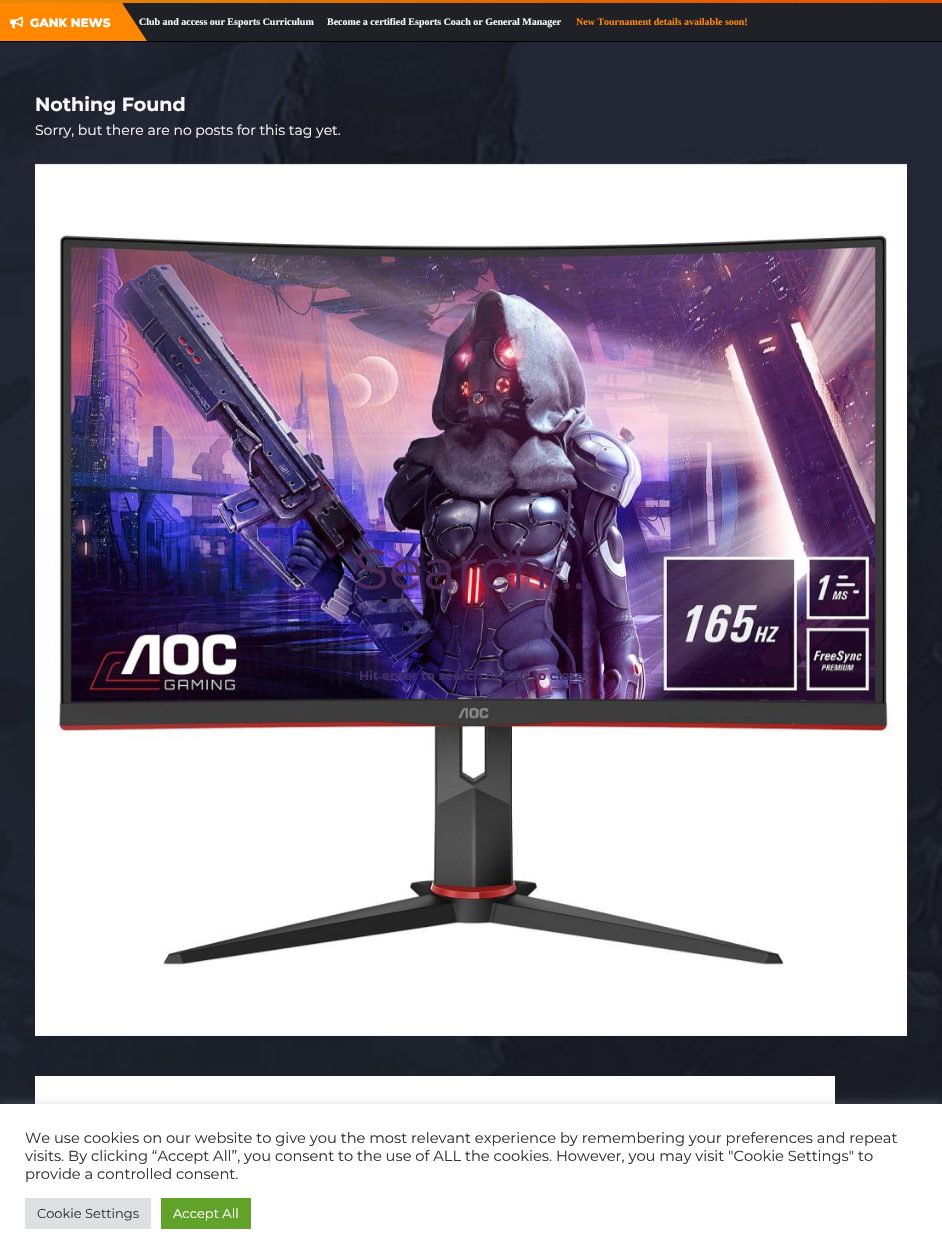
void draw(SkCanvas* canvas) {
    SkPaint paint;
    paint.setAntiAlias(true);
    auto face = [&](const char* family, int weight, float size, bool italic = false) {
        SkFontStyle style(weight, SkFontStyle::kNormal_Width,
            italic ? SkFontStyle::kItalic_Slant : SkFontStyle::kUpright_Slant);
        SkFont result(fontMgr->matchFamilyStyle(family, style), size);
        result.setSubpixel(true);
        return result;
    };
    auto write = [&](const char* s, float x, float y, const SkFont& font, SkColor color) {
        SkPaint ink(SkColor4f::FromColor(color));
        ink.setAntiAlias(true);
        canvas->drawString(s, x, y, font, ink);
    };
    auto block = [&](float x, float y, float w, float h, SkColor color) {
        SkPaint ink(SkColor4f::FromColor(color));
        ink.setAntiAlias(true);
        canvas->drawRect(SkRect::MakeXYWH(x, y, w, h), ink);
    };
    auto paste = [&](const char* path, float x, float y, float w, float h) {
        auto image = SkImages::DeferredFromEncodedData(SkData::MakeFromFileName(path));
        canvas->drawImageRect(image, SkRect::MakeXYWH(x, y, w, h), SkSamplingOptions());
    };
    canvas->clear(SK_ColorWHITE);
    paste("pic1.png", 0, 0, 942, 1104);
    paste("pic2.png", 268, 0, 532, 3);
    {
        const SkColor colors[] = {SkColorSetARGB(230, 251, 148, 0), SkColorSetARGB(230, 248, 88, 0)};
        const float stops[] = {0, 1};
        const SkPoint ends[] = {{0, -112}, {942, -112}};
        paint.setShader(SkGradientShader::MakeLinear(ends, colors, stops, 2, SkTileMode::kClamp));
        paint.setAlpha(255);
    }
    canvas->drawRect(SkRect::MakeXYWH(0, 0, 942, 3), paint);
    block(122, 3, 820, 38, SkColorSetRGB(32, 33, 38));
    block(0, 41, 942, 1, SK_ColorBLACK);
    block(0, 3, 122, 38, SkColorSetRGB(255, 136, 0));
    paste("pic3.png", 10, 16, 14, 13);
    auto kFont1 = face("Montserrat", 800, 12);
    write("GANK NEWS", 30, 27, kFont1, SK_ColorWHITE);
    auto kFont2 = face("Liberation Serif", 700, 10);
    write("Club and access our Esports Curriculum", 139, 25, kFont2, SkColorSetRGB(247, 247, 247));
    paint.setShader(nullptr);
    paint.setColor(SkColorSetRGB(255, 136, 0));
    canvas->drawPath(SkPathBuilder().moveTo(147, 41).lineTo(122, 41).lineTo(122, 3).close().detach(), paint);
    write("Become a certified Esports Coach or General Manager", 327, 25, kFont2, SkColorSetRGB(247, 247, 247));
    write("New Tournament details available soon!", 576, 25, kFont2, SkColorSetRGB(255, 136, 0));
    auto kFont3 = face("Montserrat", 700, 19);
    write("Nothing Found", 35, 111, kFont3, SkColorSetRGB(247, 247, 247));
    auto kFont4 = face("Montserrat", 400, 14);
    write("Sorry, but there are no posts for this tag yet.", 35, 135, kFont4, SkColorSetRGB(247, 247, 247));
    paste("pic4.png", 35, 163, 872, 873);
    paste("pic5.png", 35, 1076, 800, 28);
    auto kFont5 = face("Montserrat", 400, 56.5f);
    write("Search...", 354, 589, kFont5, SkColorSetRGB(79, 42, 88));
    auto kFont6 = face("Montserrat", 700, 12.6f);
    write("Hit enter to search or ESC to close", 359, 680, kFont6, SkColorSetRGB(64, 46, 103));
    paint.setColor(SkColorSetARGB(77, 172, 171, 171));
    paint.setMaskFilter(SkMaskFilter::MakeBlur(kNormal_SkBlurStyle, 5));
    canvas->drawRect(SkRect::MakeXYWH(0, 1103, 942, 155), paint);
    paint.setMaskFilter(nullptr);
    block(0, 1104, 942, 155, SK_ColorWHITE);
    auto kFont7 = face("Montserrat", 400, 14.67f);
    write("We use cookies on our website to give you the most relevant experience by remembering your preferences and repeat", 25, 1143, kFont7, SkColorSetRGB(51, 51, 51));
    write("visits. By clicking “Accept All”, you consent to the use of ALL the cookies. However, you may visit \"Cookie Settings\" to", 25, 1161, kFont7, SkColorSetRGB(51, 51, 51));
    write("provide a controlled consent.", 25, 1179, kFont7, SkColorSetRGB(51, 51, 51));
    block(25, 1198, 126, 31, SkColorSetRGB(222, 223, 224));
    auto kFont8 = face("Montserrat", 400, 13);
    write("Cookie Settings", 37, 1218, kFont8, SkColorSetRGB(51, 51, 51));
    block(161, 1198, 90, 31, SkColorSetRGB(97, 162, 41));
    write("Accept All", 173, 1218, kFont8, SK_ColorWHITE);
}
